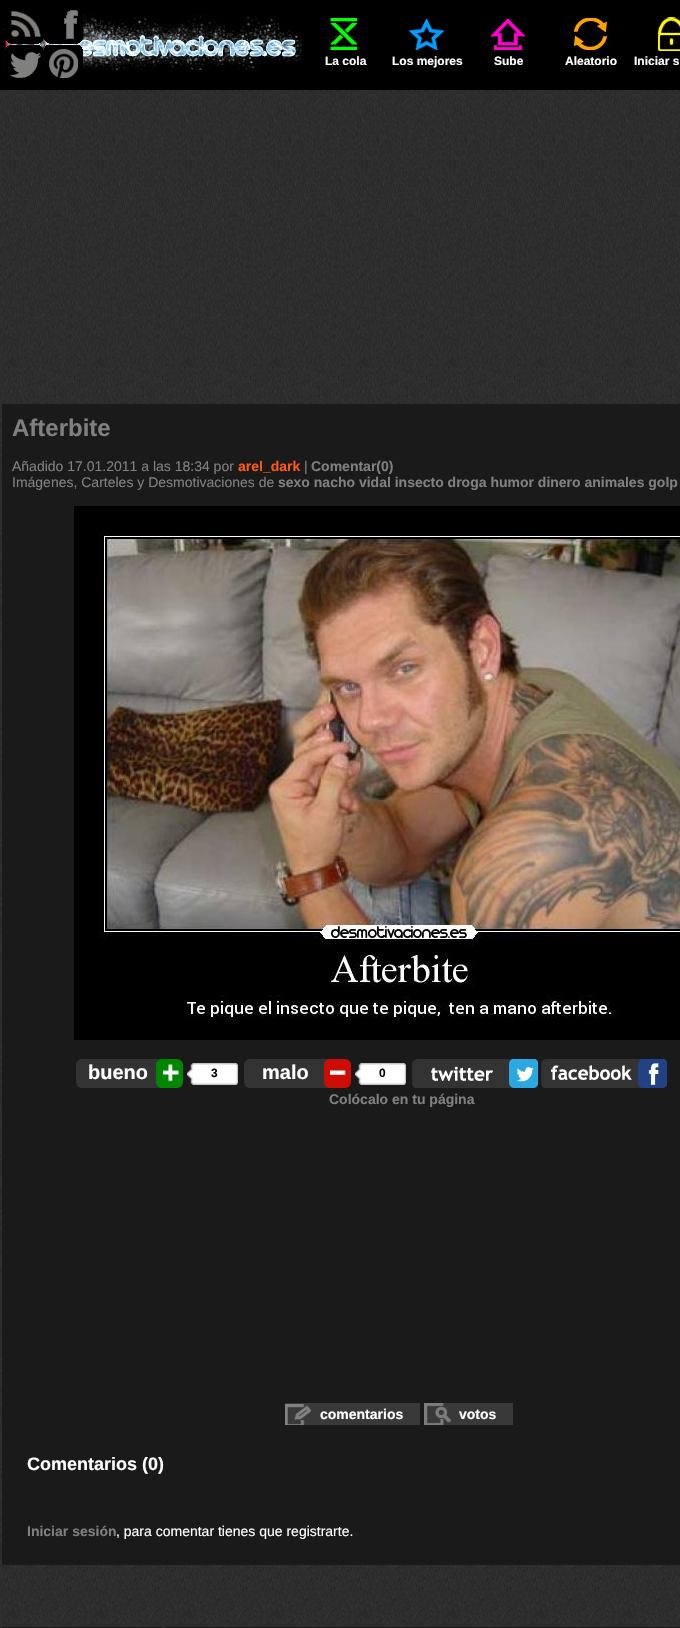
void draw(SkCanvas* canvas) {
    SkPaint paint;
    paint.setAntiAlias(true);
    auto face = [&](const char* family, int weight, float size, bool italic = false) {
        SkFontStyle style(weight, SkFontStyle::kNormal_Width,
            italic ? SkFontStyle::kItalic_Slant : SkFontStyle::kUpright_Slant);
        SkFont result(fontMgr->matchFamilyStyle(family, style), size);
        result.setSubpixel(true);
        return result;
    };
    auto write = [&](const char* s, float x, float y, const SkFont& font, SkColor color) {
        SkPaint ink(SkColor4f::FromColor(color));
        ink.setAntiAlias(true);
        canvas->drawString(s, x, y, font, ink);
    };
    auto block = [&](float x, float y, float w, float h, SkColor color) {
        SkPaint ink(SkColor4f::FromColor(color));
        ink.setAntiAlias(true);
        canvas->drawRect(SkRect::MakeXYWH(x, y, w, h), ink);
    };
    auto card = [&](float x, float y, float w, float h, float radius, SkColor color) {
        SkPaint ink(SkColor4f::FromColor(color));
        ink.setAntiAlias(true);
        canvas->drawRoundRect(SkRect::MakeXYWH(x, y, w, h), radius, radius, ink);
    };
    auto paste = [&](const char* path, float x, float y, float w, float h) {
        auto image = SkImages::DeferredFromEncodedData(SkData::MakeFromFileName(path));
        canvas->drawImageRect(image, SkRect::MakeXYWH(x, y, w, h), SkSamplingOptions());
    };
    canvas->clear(SK_ColorWHITE);
    paste("pic1.png", 0, 90, 680, 1538);
    block(0, 0, 680, 90, SK_ColorBLACK);
    paste("pic6.png", 4, 15, 298, 55);
    paste("pic2.png", 5, 11, 39, 34);
    paste("pic3.png", 44, 10, 39, 34);
    paste("pic4.png", 5, 45, 39, 33);
    paste("pic5.png", 44, 45, 39, 33);
    paste("pic7.png", 330, 18, 28, 32);
    auto kFont1 = face("Liberation Sans", 700, 12);
    write("La cola", 325, 65, kFont1, SK_ColorWHITE);
    paste("pic8.png", 408, 18, 36, 32);
    write("Los mejores", 392, 65, kFont1, SK_ColorWHITE);
    paste("pic9.png", 490, 18, 36, 32);
    write("Sube", 494, 65, kFont1, SK_ColorWHITE);
    paste("pic10.png", 574, 18, 33, 32);
    write("Aleatorio", 565, 65, kFont1, SK_ColorWHITE);
    paste("pic11.png", 658, 17, 22, 34);
    write("Iniciar s", 634, 65, kFont1, SK_ColorWHITE);
    block(2, 404, 678, 1161, SkColorSetRGB(26, 26, 26));
    auto kFont2 = face("Liberation Sans", 700, 24);
    write("Afterbite", 12, 436, kFont2, SkColorSetRGB(128, 128, 128));
    auto kFont3 = face("Liberation Sans", 400, 14);
    write("Añadido 17.01.2011 a las 18:34 por", 12, 471, kFont3, SkColorSetRGB(128, 128, 128));
    auto kFont4 = face("Liberation Sans", 700, 14);
    write("arel_dark", 238, 471, kFont4, SkColorSetRGB(255, 89, 23));
    write("|", 304, 471, kFont3, SkColorSetRGB(128, 128, 128));
    write("Comentar(0)", 311, 471, kFont4, SkColorSetRGB(128, 128, 128));
    write("Imágenes, Carteles y Desmotivaciones de", 12, 487, kFont3, SkColorSetRGB(128, 128, 128));
    write("sexo nacho vidal insecto droga humor dinero animales golp", 278, 487, kFont4, SkColorSetRGB(128, 128, 128));
    paste("pic12.png", 74, 506, 606, 534);
    card(76, 1059, 93, 29, 6, SkColorSetRGB(51, 51, 51));
    auto kFont5 = face("Liberation Sans", 700, 20);
    write("bueno", 88, 1079, kFont5, SK_ColorWHITE);
    card(156, 1059, 27, 29, 6, SkColorSetRGB(0, 134, 0));
    paste("pic13.png", 163, 1064, 16, 18);
    paste("pic14.png", 187, 1063, 51, 22);
    write("3", 211, 1077, kFont1, SK_ColorBLACK);
    card(244, 1059, 93, 29, 6, SkColorSetRGB(51, 51, 51));
    write("malo", 262, 1079, kFont5, SK_ColorWHITE);
    card(324, 1059, 27, 29, 6, SkColorSetRGB(205, 12, 6));
    paste("pic15.png", 330, 1070, 16, 5);
    paste("pic16.png", 355, 1063, 51, 22);
    write("0", 379, 1077, kFont1, SK_ColorBLACK);
    paste("pic17.png", 412, 1059, 126, 29);
    paste("pic18.png", 541, 1059, 126, 29);
    write("Colócalo en tu página", 329, 1104, kFont4, SkColorSetRGB(128, 128, 128));
    block(285, 1403, 135, 22, SkColorSetRGB(57, 57, 57));
    paste("pic19.png", 285, 1404, 26, 21);
    write("comentarios", 320, 1419, kFont4, SK_ColorWHITE);
    block(424, 1403, 89, 22, SkColorSetRGB(57, 57, 57));
    paste("pic20.png", 424, 1403, 27, 22);
    write("votos", 459, 1419, kFont4, SK_ColorWHITE);
    auto kFont6 = face("Liberation Sans", 700, 18);
    write("Comentarios (0)", 27, 1470, kFont6, SK_ColorWHITE);
    write("Iniciar sesión", 27, 1536, kFont4, SkColorSetRGB(128, 128, 128));
    write(", para comentar tienes que registrarte.", 116, 1536, kFont3, SK_ColorWHITE);
    block(2, 1627, 160, 1, SkColorSetRGB(26, 26, 26));
    block(166, 1627, 514, 1, SkColorSetRGB(26, 26, 26));
}
